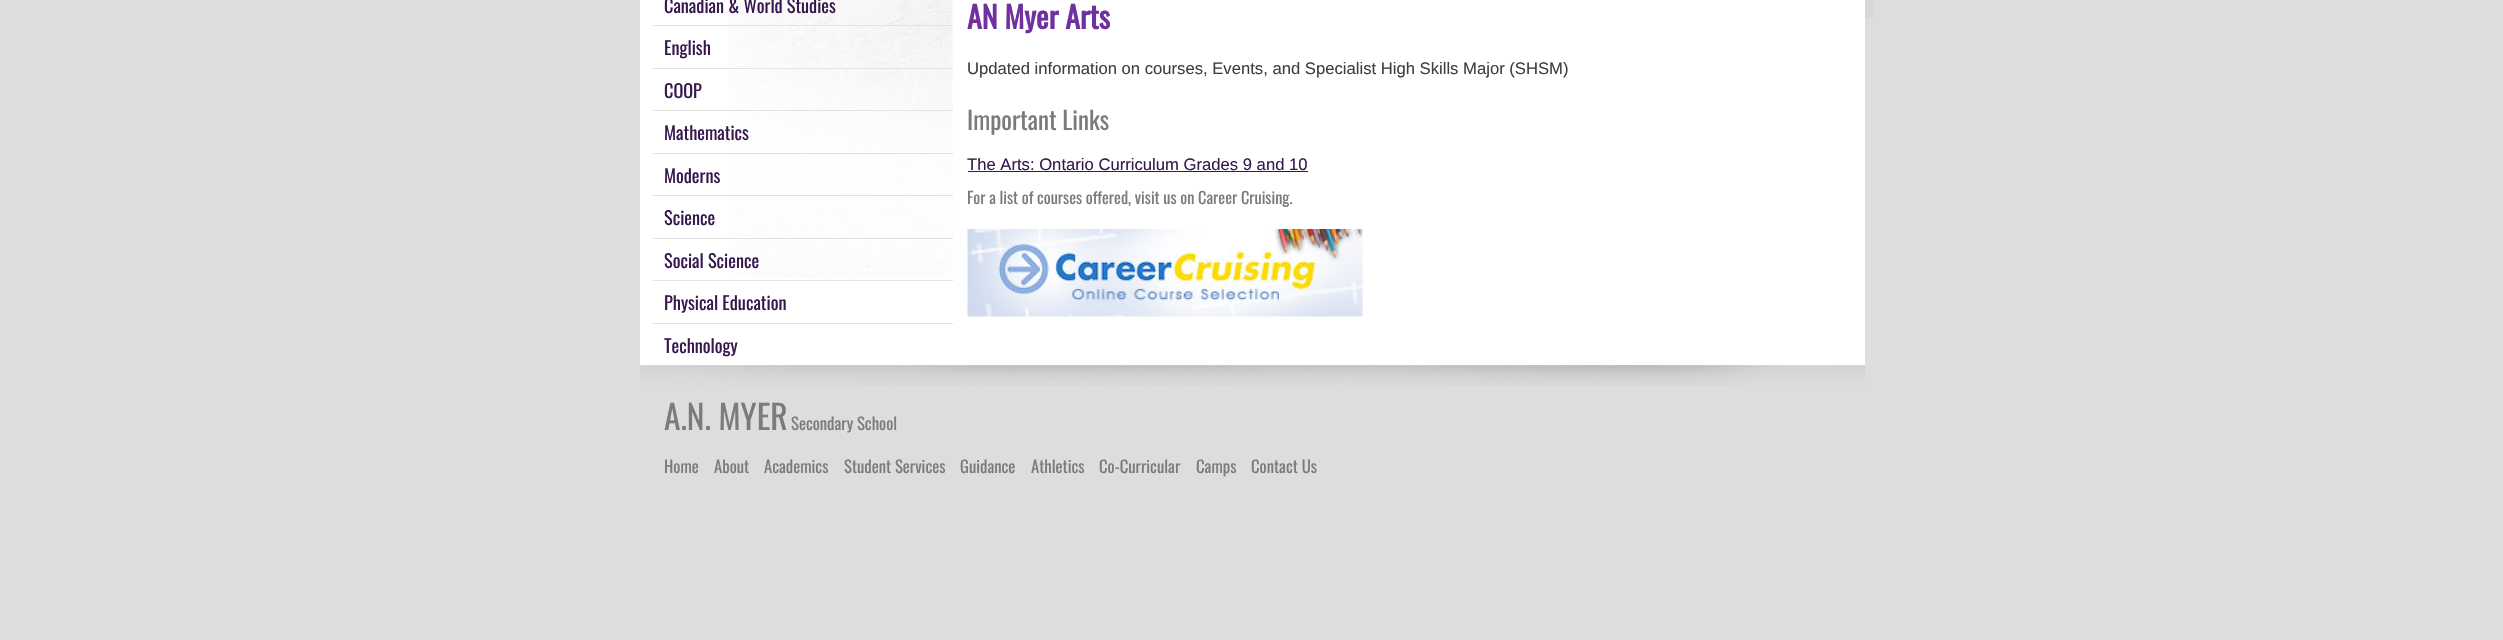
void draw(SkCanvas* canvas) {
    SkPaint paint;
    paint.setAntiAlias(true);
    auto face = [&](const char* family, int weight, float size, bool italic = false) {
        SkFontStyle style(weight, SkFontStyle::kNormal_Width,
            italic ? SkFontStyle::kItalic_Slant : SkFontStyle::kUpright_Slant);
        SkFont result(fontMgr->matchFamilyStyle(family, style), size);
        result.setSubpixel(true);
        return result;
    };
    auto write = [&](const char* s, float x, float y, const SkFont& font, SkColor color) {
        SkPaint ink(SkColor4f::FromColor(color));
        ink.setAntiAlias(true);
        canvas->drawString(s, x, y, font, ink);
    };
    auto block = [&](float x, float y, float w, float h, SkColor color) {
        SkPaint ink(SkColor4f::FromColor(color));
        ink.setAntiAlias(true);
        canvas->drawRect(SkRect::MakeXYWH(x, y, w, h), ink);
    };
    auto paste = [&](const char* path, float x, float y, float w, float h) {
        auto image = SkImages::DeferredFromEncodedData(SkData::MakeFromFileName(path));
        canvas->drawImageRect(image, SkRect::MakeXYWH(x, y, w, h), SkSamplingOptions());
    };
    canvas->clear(SkColorSetRGB(221, 221, 221));
    block(1865, 0, 9, 18, SkColorSetRGB(216, 216, 216));
    block(640, 0, 1225, 365, SK_ColorWHITE);
    paste("pic1.png", 728, 0, 225, 278);
    auto kFont1 = face("Oswald", 400, 18.25f);
    write("Canadian & World Studies", 664, 13, kFont1, SkColorSetRGB(54, 24, 78));
    block(653, 25, 300, 1, SkColorSetRGB(226, 226, 226));
    write("English", 664, 55, kFont1, SkColorSetRGB(54, 24, 78));
    block(653, 68, 300, 1, SkColorSetRGB(226, 226, 226));
    write("COOP", 664, 98, kFont1, SkColorSetRGB(54, 24, 78));
    block(653, 110, 300, 1, SkColorSetRGB(226, 226, 226));
    write("Mathematics", 664, 140, kFont1, SkColorSetRGB(54, 24, 78));
    block(653, 153, 300, 1, SkColorSetRGB(226, 226, 226));
    write("Moderns", 664, 183, kFont1, SkColorSetRGB(54, 24, 78));
    block(653, 195, 300, 1, SkColorSetRGB(226, 226, 226));
    write("Science", 664, 225, kFont1, SkColorSetRGB(54, 24, 78));
    block(653, 238, 300, 1, SkColorSetRGB(226, 226, 226));
    write("Social Science", 664, 268, kFont1, SkColorSetRGB(54, 24, 78));
    block(653, 280, 300, 1, SkColorSetRGB(226, 226, 226));
    write("Physical Education", 664, 310, kFont1, SkColorSetRGB(54, 24, 78));
    block(653, 323, 300, 1, SkColorSetRGB(226, 226, 226));
    write("Technology", 664, 353, kFont1, SkColorSetRGB(54, 24, 78));
    auto kFont2 = face("Oswald", 700, 30);
    write("AN Myer Arts", 967, 29, kFont2, SkColorSetRGB(112, 48, 160));
    auto kFont3 = face("Liberation Sans", 400, 16.65f);
    write("Updated information on courses, Events, and Specialist High Skills Major (SHSM)", 967, 74, kFont3, SkColorSetRGB(63, 63, 63));
    auto kFont4 = face("Oswald", 400, 25);
    write("Important Links", 967, 130, kFont4, SkColorSetRGB(123, 123, 123));
    write("The Arts: Ontario Curriculum Grades 9 and 10", 967, 170, kFont3, SkColorSetRGB(54, 24, 78));
    block(968, 171, 340, 1, SkColorSetRGB(54, 24, 78));
    auto kFont5 = face("Oswald", 400, 16.25f);
    write("For a list of courses offered, visit us on Career Cruising.", 967, 204, kFont5, SkColorSetRGB(123, 123, 123));
    paste("pic2.png", 967, 229, 396, 88);
    paste("pic3.png", 640, 365, 1225, 21);
    auto kFont6 = face("Oswald", 400, 33.5f);
    write("A.N. MYER", 664, 430, kFont6, SkColorSetRGB(123, 123, 123));
    auto kFont7 = face("Oswald", 400, 16.65f);
    write("Secondary School", 791, 430, kFont7, SkColorSetRGB(123, 123, 123));
    write("Home", 664, 473, kFont7, SkColorSetRGB(123, 123, 123));
    write("About", 714, 473, kFont7, SkColorSetRGB(123, 123, 123));
    write("Academics", 764, 473, kFont7, SkColorSetRGB(123, 123, 123));
    write("Student Services", 844, 473, kFont7, SkColorSetRGB(123, 123, 123));
    write("Guidance", 960, 473, kFont7, SkColorSetRGB(123, 123, 123));
    write("Athletics", 1031, 473, kFont7, SkColorSetRGB(123, 123, 123));
    write("Co-Curricular", 1099, 473, kFont7, SkColorSetRGB(123, 123, 123));
    write("Camps", 1196, 473, kFont7, SkColorSetRGB(123, 123, 123));
    write("Contact Us", 1251, 473, kFont7, SkColorSetRGB(123, 123, 123));
}
